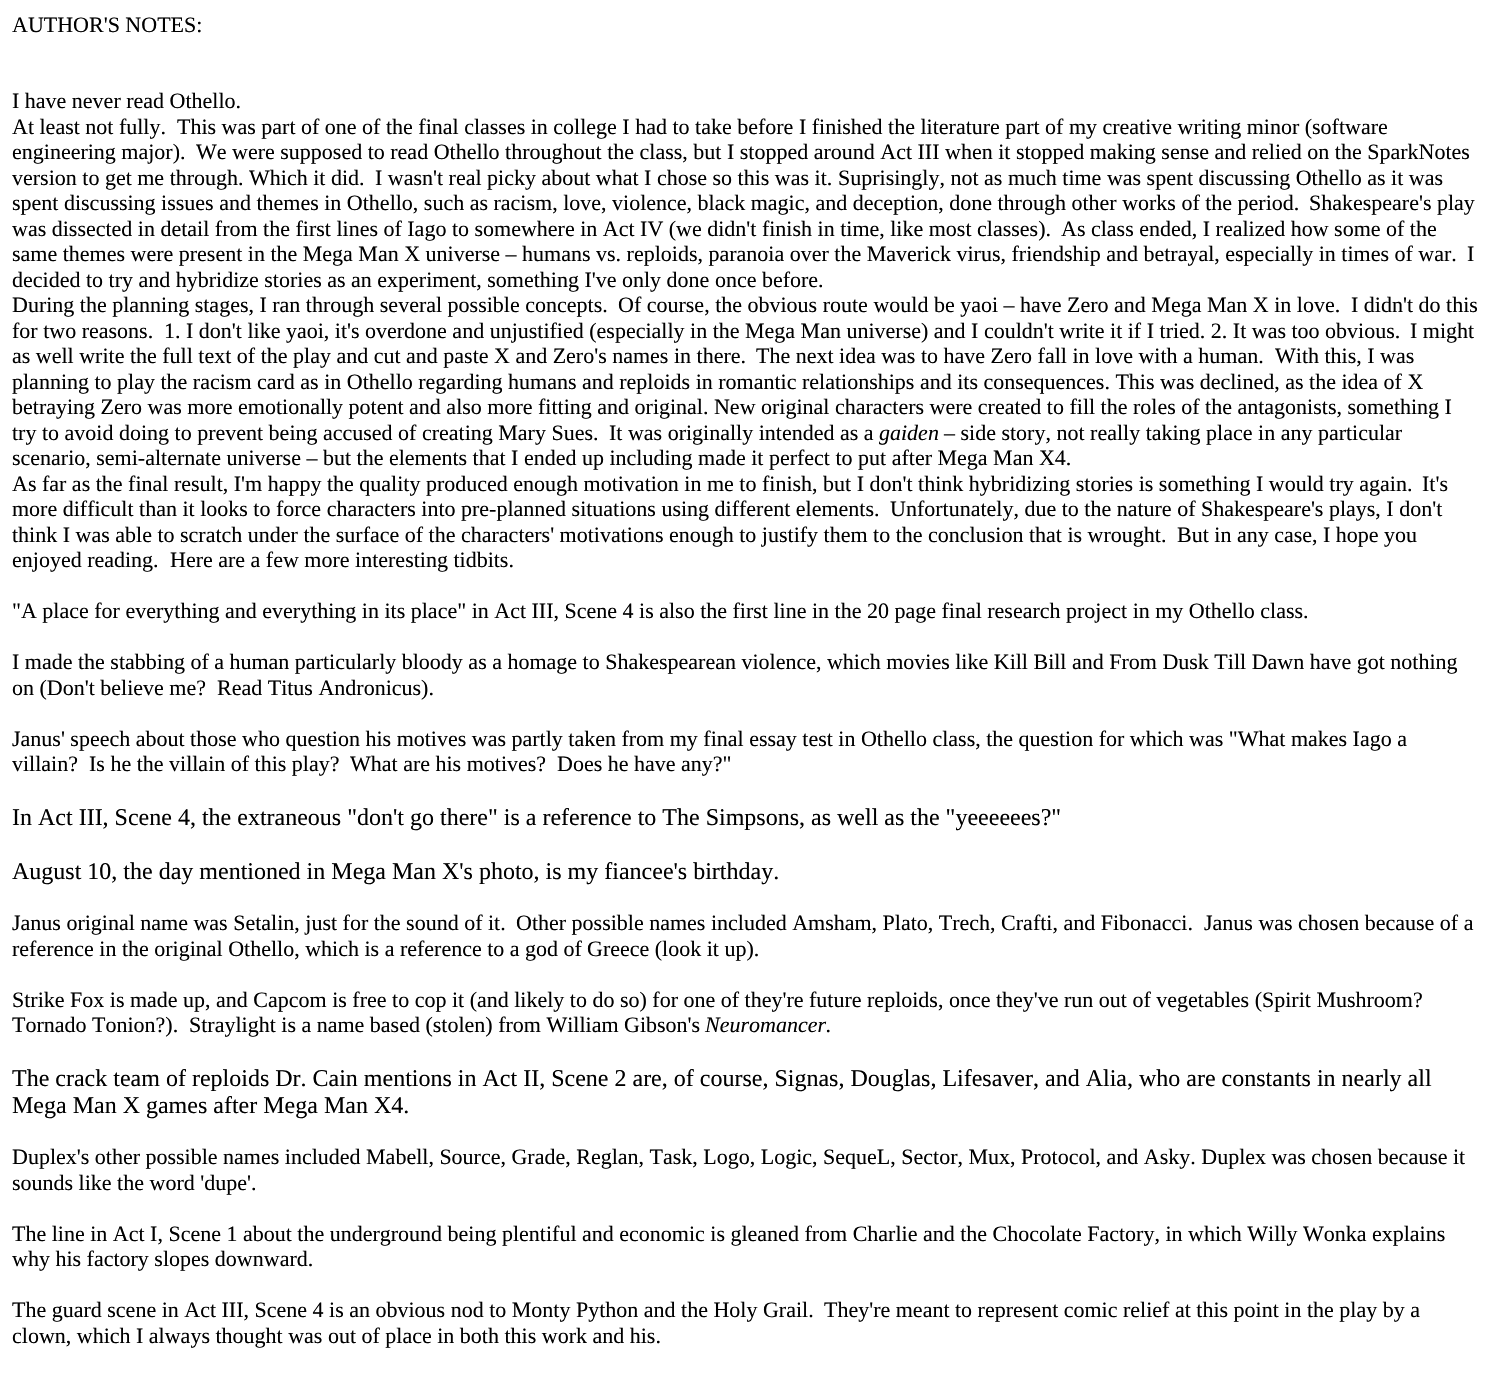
void draw(SkCanvas* canvas) {
    SkPaint paint;
    paint.setAntiAlias(true);
    auto face = [&](const char* family, int weight, float size, bool italic = false) {
        SkFontStyle style(weight, SkFontStyle::kNormal_Width,
            italic ? SkFontStyle::kItalic_Slant : SkFontStyle::kUpright_Slant);
        SkFont result(fontMgr->matchFamilyStyle(family, style), size);
        result.setSubpixel(true);
        return result;
    };
    auto write = [&](const char* s, float x, float y, const SkFont& font, SkColor color) {
        SkPaint ink(SkColor4f::FromColor(color));
        ink.setAntiAlias(true);
        canvas->drawString(s, x, y, font, ink);
    };
    canvas->clear(SK_ColorWHITE);
    auto kFont1 = face("Liberation Serif", 400, 22);
    write("AUTHOR'S NOTES:", 12, 32, kFont1, SK_ColorBLACK);
    write("I have never read Othello.", 12, 108, kFont1, SK_ColorBLACK);
    write("At least not fully.", 12, 134, kFont1, SK_ColorBLACK);
    write("This was part of one of the final classes in college I had to take before I finished the literature part of my creative writing minor (software", 177, 134, kFont1, SK_ColorBLACK);
    write("engineering major).", 12, 159, kFont1, SK_ColorBLACK);
    write("We were supposed to read Othello throughout the class, but I stopped around Act III when it stopped making sense and relied on the SparkNotes", 196, 159, kFont1, SK_ColorBLACK);
    write("version to get me through. Which it did.", 12, 185, kFont1, SK_ColorBLACK);
    write("I wasn't real picky about what I chose so this was it.", 375, 185, kFont1, SK_ColorBLACK);
    write("Suprisingly, not as much time was spent discussing Othello as it was", 838, 185, kFont1, SK_ColorBLACK);
    write("spent discussing issues and themes in Othello, such as racism, love, violence, black magic, and deception, done through other works of the period.", 12, 210, kFont1, SK_ColorBLACK);
    write("Shakespeare's play", 1309, 210, kFont1, SK_ColorBLACK);
    write("was dissected in detail from the first lines of Iago to somewhere in Act IV (we didn't finish in time, like most classes).", 12, 236, kFont1, SK_ColorBLACK);
    write("As class ended, I realized how some of the", 1061, 236, kFont1, SK_ColorBLACK);
    write("same themes were present in the Mega Man X universe – humans vs. reploids, paranoia over the Maverick virus, friendship and betrayal, especially in times of war.", 12, 261, kFont1, SK_ColorBLACK);
    write("I", 1467, 261, kFont1, SK_ColorBLACK);
    write("decided to try and hybridize stories as an experiment, something I've only done once before.", 12, 287, kFont1, SK_ColorBLACK);
    write("During the planning stages, I ran through several possible concepts.", 12, 312, kFont1, SK_ColorBLACK);
    write("Of course, the obvious route would be yaoi – have Zero and Mega Man X in love.", 618, 312, kFont1, SK_ColorBLACK);
    write("I didn't do this", 1351, 312, kFont1, SK_ColorBLACK);
    write("for two reasons.", 12, 338, kFont1, SK_ColorBLACK);
    write("1. I don't like yaoi, it's overdone and unjustified (especially in the Mega Man universe) and I couldn't write it if I tried. 2. It was too obvious.", 164, 338, kFont1, SK_ColorBLACK);
    write("I might", 1410, 338, kFont1, SK_ColorBLACK);
    write("as well write the full text of the play and cut and paste X and Zero's names in there.", 12, 363, kFont1, SK_ColorBLACK);
    write("The next idea was to have Zero fall in love with a human.", 756, 363, kFont1, SK_ColorBLACK);
    write("With this, I was", 1275, 363, kFont1, SK_ColorBLACK);
    write("planning to play the racism card as in Othello regarding humans and reploids in romantic relationships and its consequences. This was declined, as the idea of X", 12, 389, kFont1, SK_ColorBLACK);
    write("betraying Zero was more emotionally potent and also more fitting and original. New original characters were created to fill the roles of the antagonists, something I", 12, 414, kFont1, SK_ColorBLACK);
    write("try to avoid doing to prevent being accused of creating Mary Sues.", 12, 440, kFont1, SK_ColorBLACK);
    write("It was originally intended as a", 609, 440, kFont1, SK_ColorBLACK);
    auto kFont2 = face("Liberation Serif", 400, 22, true);
    write("gaiden", 879, 440, kFont2, SK_ColorBLACK);
    write("– side story, not really taking place in any particular", 944, 440, kFont1, SK_ColorBLACK);
    write("scenario, semi-alternate universe – but the elements that I ended up including made it perfect to put after Mega Man X4.", 12, 465, kFont1, SK_ColorBLACK);
    write("As far as the final result, I'm happy the quality produced enough motivation in me to finish, but I don't think hybridizing stories is something I would try again.", 12, 491, kFont1, SK_ColorBLACK);
    write("It's", 1422, 491, kFont1, SK_ColorBLACK);
    write("more difficult than it looks to force characters into pre-planned situations using different elements.", 12, 516, kFont1, SK_ColorBLACK);
    write("Unfortunately, due to the nature of Shakespeare's plays, I don't", 890, 516, kFont1, SK_ColorBLACK);
    write("think I was able to scratch under the surface of the characters' motivations enough to justify them to the conclusion that is wrought.", 12, 542, kFont1, SK_ColorBLACK);
    write("But in any case, I hope you", 1177, 542, kFont1, SK_ColorBLACK);
    write("enjoyed reading.", 12, 567, kFont1, SK_ColorBLACK);
    write("Here are a few more interesting tidbits.", 170, 567, kFont1, SK_ColorBLACK);
    write("\"A place for everything and everything in its place\" in Act III, Scene 4 is also the first line in the 20 page final research project in my Othello class.", 12, 618, kFont1, SK_ColorBLACK);
    write("I made the stabbing of a human particularly bloody as a homage to Shakespearean violence, which movies like Kill Bill and From Dusk Till Dawn have got nothing", 12, 669, kFont1, SK_ColorBLACK);
    write("on (Don't believe me?", 12, 695, kFont1, SK_ColorBLACK);
    write("Read Titus Andronicus).", 217, 695, kFont1, SK_ColorBLACK);
    write("Janus' speech about those who question his motives was partly taken from my final essay test in Othello class, the question for which was \"What makes Iago a", 12, 746, kFont1, SK_ColorBLACK);
    write("villain?", 12, 771, kFont1, SK_ColorBLACK);
    write("Is he the villain of this play?", 89, 771, kFont1, SK_ColorBLACK);
    write("What are his motives?", 350, 771, kFont1, SK_ColorBLACK);
    write("Does he have any?\"", 557, 771, kFont1, SK_ColorBLACK);
    auto kFont3 = face("Liberation Serif", 400, 24);
    write("In Act III, Scene 4, the extraneous \"don't go there\" is a reference to The Simpsons, as well as the \"yeeeeees?\"", 12, 825, kFont3, SK_ColorBLACK);
    write("August 10, the day mentioned in Mega Man X's photo, is my fiancee's birthday.", 12, 879, kFont3, SK_ColorBLACK);
    write("Janus original name was Setalin, just for the sound of it.", 12, 930, kFont1, SK_ColorBLACK);
    write("Other possible names included Amsham, Plato, Trech, Crafti, and Fibonacci.", 516, 930, kFont1, SK_ColorBLACK);
    write("Janus was chosen because of a", 1204, 930, kFont1, SK_ColorBLACK);
    write("reference in the original Othello, which is a reference to a god of", 12, 956, kFont1, SK_ColorBLACK);
    write("Greece (look it up).", 587, 956, kFont1, SK_ColorBLACK);
    write("Strike Fox is made up, and Capcom is free to cop it (and likely to do so) for one of they're future reploids, once they've run out of vegetables (Spirit Mushroom?", 12, 1007, kFont1, SK_ColorBLACK);
    write("Tornado Tonion?).", 12, 1032, kFont1, SK_ColorBLACK);
    write("Straylight is a name based (stolen) from William Gibson's", 189, 1032, kFont1, SK_ColorBLACK);
    write("Neuromancer.", 705, 1032, kFont2, SK_ColorBLACK);
    write("The crack team of reploids Dr. Cain mentions in Act II, Scene 2 are, of course, Signas, Douglas, Lifesaver, and Alia, who are constants in nearly all", 12, 1086, kFont3, SK_ColorBLACK);
    write("Mega Man X games after Mega Man X4.", 12, 1113, kFont3, SK_ColorBLACK);
    write("Duplex's other possible names included Mabell, Source, Grade, Reglan, Task, Logo, Logic, SequeL, Sector, Mux, Protocol, and Asky. Duplex was chosen because it", 12, 1164, kFont1, SK_ColorBLACK);
    write("sounds like the word 'dupe'.", 12, 1190, kFont1, SK_ColorBLACK);
    write("The line in Act I, Scene 1 about the underground being plentiful and economic is gleaned from Charlie and the Chocolate Factory, in which Willy Wonka explains", 12, 1241, kFont1, SK_ColorBLACK);
    write("why his factory slopes downward.", 12, 1266, kFont1, SK_ColorBLACK);
    write("The guard scene in Act III, Scene 4 is an obvious nod to Monty Python and the Holy Grail.", 12, 1317, kFont1, SK_ColorBLACK);
    write("They're meant to represent comic relief at this point in the play by a", 824, 1317, kFont1, SK_ColorBLACK);
    write("clown, which I always thought was out of place in both this work and his.", 12, 1343, kFont1, SK_ColorBLACK);
}
